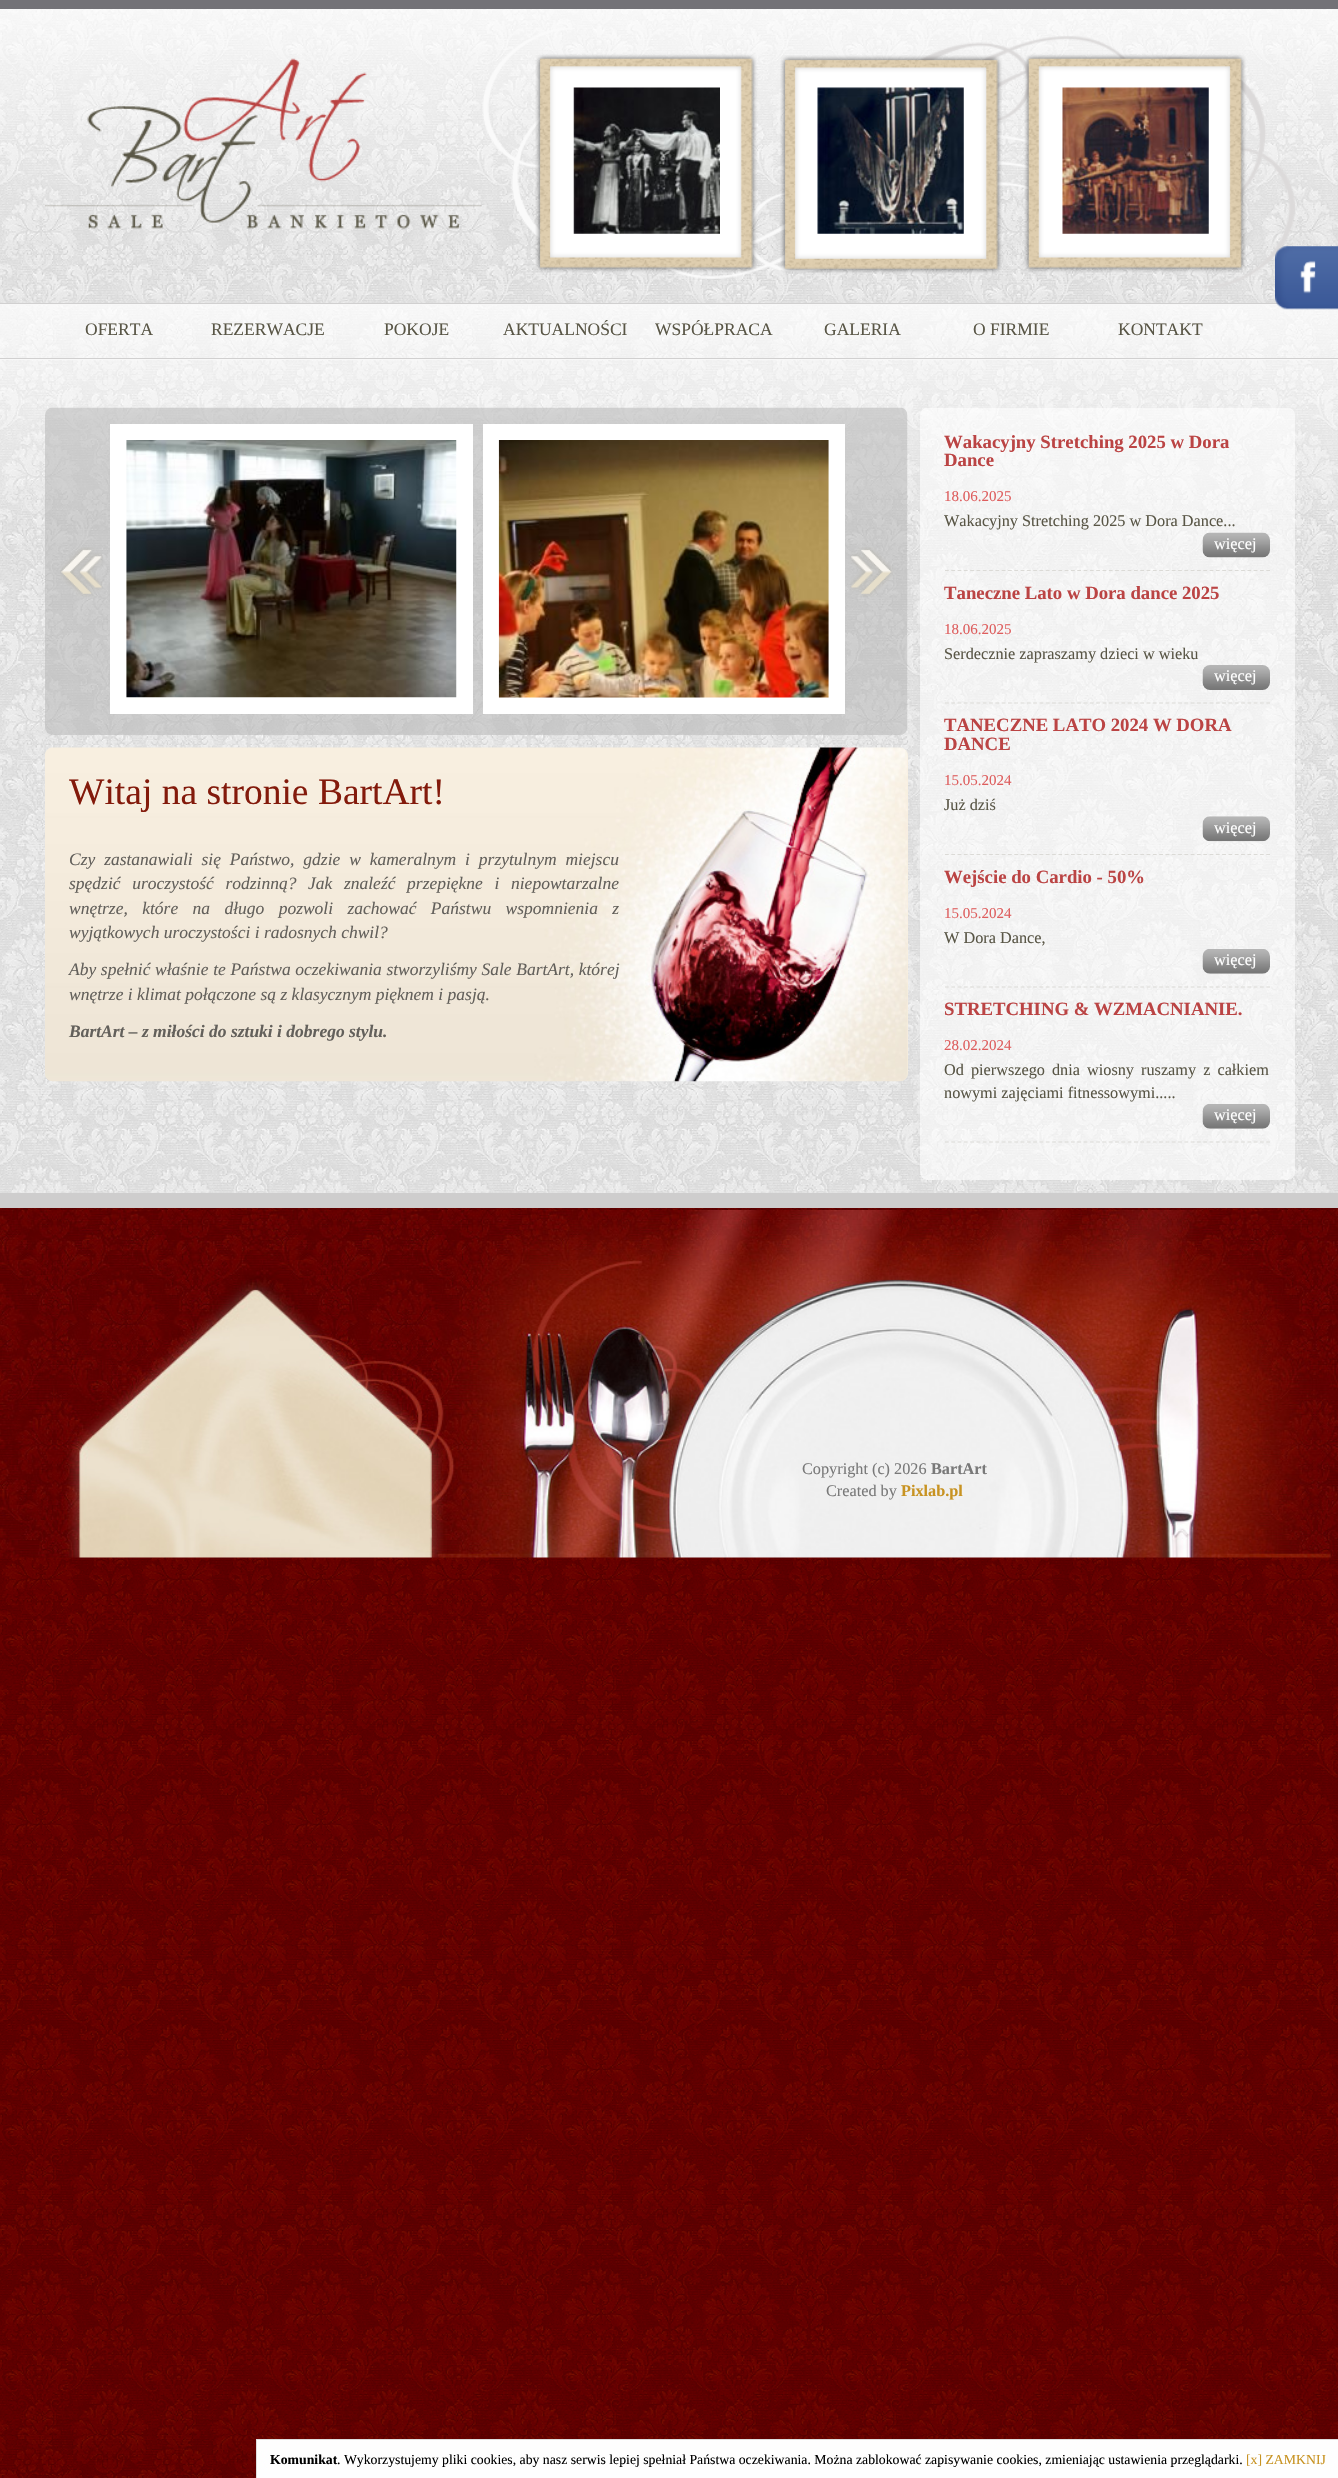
void draw(SkCanvas* canvas) {
    SkPaint paint;
    paint.setAntiAlias(true);
    auto face = [&](const char* family, int weight, float size, bool italic = false) {
        SkFontStyle style(weight, SkFontStyle::kNormal_Width,
            italic ? SkFontStyle::kItalic_Slant : SkFontStyle::kUpright_Slant);
        SkFont result(fontMgr->matchFamilyStyle(family, style), size);
        result.setSubpixel(true);
        return result;
    };
    auto write = [&](const char* s, float x, float y, const SkFont& font, SkColor color) {
        SkPaint ink(SkColor4f::FromColor(color));
        ink.setAntiAlias(true);
        canvas->drawString(s, x, y, font, ink);
    };
    auto writeSpaced = [&](const char* s, float x, float y, const SkFont& font, const SkPaint& ink, float letter, float word) {
        std::vector<SkGlyphID> glyphs(font.countText(s, strlen(s), SkTextEncoding::kUTF8));
        std::vector<float> xs(glyphs.size());
        font.textToGlyphs(s, strlen(s), SkTextEncoding::kUTF8, glyphs);
        font.getXPos(glyphs, xs, x);
        float extra = 0;
        for (size_t i = 0; i < glyphs.size(); i++) {
            xs[i] += extra;
            extra += letter + word * (glyphs[i] == font.unicharToGlyph(' '));
        }
        canvas->drawTextBlob(SkTextBlob::MakeFromPosHGlyphs(glyphs, xs, y, font), 0, 0, ink);
    };
    auto block = [&](float x, float y, float w, float h, SkColor color) {
        SkPaint ink(SkColor4f::FromColor(color));
        ink.setAntiAlias(true);
        canvas->drawRect(SkRect::MakeXYWH(x, y, w, h), ink);
    };
    auto card = [&](float x, float y, float w, float h, float radius, SkColor color) {
        SkPaint ink(SkColor4f::FromColor(color));
        ink.setAntiAlias(true);
        canvas->drawRoundRect(SkRect::MakeXYWH(x, y, w, h), radius, radius, ink);
    };
    auto paste = [&](const char* path, float x, float y, float w, float h) {
        auto image = SkImages::DeferredFromEncodedData(SkData::MakeFromFileName(path));
        canvas->drawImageRect(image, SkRect::MakeXYWH(x, y, w, h), SkSamplingOptions());
    };
    canvas->clear(SK_ColorWHITE);
    paste("pic1.png", 0, 1208, 1338, 1270);
    paste("pic3.png", 0, 9, 1338, 1184);
    paste("pic4.png", 0, 9, 1338, 212);
    paste("pic6.png", 482, 28, 813, 261);
    paste("pic10.png", 0, 305, 1338, 53);
    block(0, 303, 1279, 1, SkColorSetRGB(209, 208, 208));
    block(0, 304, 1281, 1, SkColorSetRGB(248, 248, 248));
    paste("pic2.png", 1275, 246, 63, 64);
    block(0, 0, 1338, 9, SkColorSetRGB(115, 114, 119));
    paste("pic5.png", 45, 58, 437, 171);
    paste("pic7.png", 573, 87, 147, 147);
    paste("pic8.png", 817, 87, 147, 147);
    paste("pic9.png", 1062, 87, 147, 147);
    block(0, 359, 1338, 1, SkColorSetRGB(248, 248, 248));
    block(0, 358, 1338, 1, SkColorSetRGB(209, 208, 208));
    auto kFont1 = face("Liberation Serif", 400, 17.5f);
    write("OFERTA", 85, 335, kFont1, SkColorSetRGB(89, 86, 70));
    write("REZERWACJE", 211, 335, kFont1, SkColorSetRGB(89, 86, 70));
    write("POKOJE", 384, 335, kFont1, SkColorSetRGB(89, 86, 70));
    write("AKTUALNOŚCI", 503, 335, kFont1, SkColorSetRGB(89, 86, 70));
    write("WSPÓŁPRACA", 655, 335, kFont1, SkColorSetRGB(89, 86, 70));
    write("GALERIA", 824, 335, kFont1, SkColorSetRGB(89, 86, 70));
    write("O FIRMIE", 973, 335, kFont1, SkColorSetRGB(89, 86, 70));
    write("KONTAKT", 1118, 335, kFont1, SkColorSetRGB(89, 86, 70));
    paste("pic11.png", 0, 360, 1338, 150);
    block(0, 1193, 1338, 15, SkColorSetRGB(206, 205, 205));
    paste("pic12.png", 45, 407, 863, 328);
    paste("pic13.png", 60, 547, 43, 50);
    block(110, 424, 363, 290, SK_ColorWHITE);
    paste("pic14.png", 126, 440, 331, 258);
    block(483, 424, 362, 290, SK_ColorWHITE);
    paste("pic15.png", 498, 440, 331, 258);
    paste("pic16.png", 850, 547, 43, 50);
    card(45, 748, 863, 333, 8, SkColorSetRGB(248, 239, 223));
    paste("pic17.png", 45, 747, 863, 335);
    auto kFont2 = face("Liberation Serif", 400, 37.5f);
    write("Witaj na stronie BartArt!", 69, 804, kFont2, SkColorSetRGB(131, 26, 11));
    auto kFont3 = face("Liberation Serif", 400, 17.5f, true);
    paint.setColor(SkColorSetRGB(99, 96, 91));
    writeSpaced("Czy zastanawiali się Państwo, gdzie w kameralnym i przytulnym miejscu", 69, 865, kFont3, paint, 0, 4.5f);
    writeSpaced("spędzić uroczystość rodzinną? Jak znaleźć przepiękne i niepowtarzalne", 69, 889, kFont3, paint, 0, 7.25f);
    writeSpaced("wnętrze, które na długo pozwoli zachować Państwu wspomnienia z", 69, 914, kFont3, paint, 0, 10);
    write("wyjątkowych uroczystości i radosnych chwil?", 69, 938, kFont3, SkColorSetRGB(99, 96, 91));
    writeSpaced("Aby spełnić właśnie te Państwa oczekiwania stworzyliśmy Sale BartArt, której", 69, 975, kFont3, paint, 0, 0.25f);
    write("wnętrze i klimat połączone są z klasycznym pięknem i pasją.", 69, 1000, kFont3, SkColorSetRGB(99, 96, 91));
    auto kFont4 = face("Liberation Serif", 700, 17.5f, true);
    write("BartArt – z miłości do sztuki i dobrego stylu.", 69, 1037, kFont4, SkColorSetRGB(99, 96, 91));
    paste("pic18.png", 920, 408, 375, 772);
    paint.setStyle(SkPaint::kStroke_Style);
    paint.setStrokeWidth(1.2f);
    paint.setColor(SkColorSetRGB(219, 218, 214));
    paint.setPathEffect(SkDashPathEffect::Make({{3.75f, 2.55f}}, 0));
    canvas->drawPath(SkPathBuilder().moveTo(945, 570.5f).lineTo(1270, 570.5f).detach(), paint);
    paint.setPathEffect(nullptr);
    auto kFont5 = face("Liberation Serif", 700, 18.75f);
    write("Wakacyjny Stretching 2025 w Dora", 944, 448, kFont5, SkColorSetRGB(187, 68, 68));
    write("Dance", 944, 466, kFont5, SkColorSetRGB(187, 68, 68));
    auto kFont6 = face("Liberation Serif", 400, 15);
    write("18.06.2025", 944, 501, kFont6, SkColorSetRGB(222, 93, 93));
    auto kFont7 = face("Liberation Serif", 400, 16.25f);
    write("Wakacyjny Stretching 2025 w Dora Dance...", 944, 526, kFont7, SkColorSetRGB(89, 86, 70));
    paste("pic19.png", 1202, 532, 68, 26);
    write("więcej", 1214, 549, kFont7, SK_ColorWHITE);
    paint.setPathEffect(SkDashPathEffect::Make({{3.75f, 2.55f}}, 0));
    canvas->drawPath(SkPathBuilder().moveTo(945, 703).lineTo(1270, 703).detach(), paint);
    paint.setPathEffect(nullptr);
    write("Taneczne Lato w Dora dance 2025", 944, 599, kFont5, SkColorSetRGB(187, 68, 68));
    write("18.06.2025", 944, 634, kFont6, SkColorSetRGB(222, 93, 93));
    write("Serdecznie zapraszamy dzieci w wieku", 944, 659, kFont7, SkColorSetRGB(89, 86, 70));
    paste("pic20.png", 1202, 665, 68, 25);
    write("więcej", 1214, 681, kFont7, SK_ColorWHITE);
    paint.setPathEffect(SkDashPathEffect::Make({{3.75f, 2.55f}}, 0));
    canvas->drawPath(SkPathBuilder().moveTo(945, 854.5f).lineTo(1270, 854.5f).detach(), paint);
    paint.setPathEffect(nullptr);
    write("TANECZNE LATO 2024 W DORA", 944, 731, kFont5, SkColorSetRGB(187, 68, 68));
    write("DANCE", 944, 750, kFont5, SkColorSetRGB(187, 68, 68));
    write("15.05.2024", 944, 785, kFont6, SkColorSetRGB(222, 93, 93));
    write("Już dziś", 944, 810, kFont7, SkColorSetRGB(89, 86, 70));
    paste("pic21.png", 1202, 816, 68, 26);
    write("więcej", 1214, 833, kFont7, SK_ColorWHITE);
    paint.setPathEffect(SkDashPathEffect::Make({{3.75f, 2.55f}}, 0));
    canvas->drawPath(SkPathBuilder().moveTo(945, 987).lineTo(1270, 987).detach(), paint);
    paint.setPathEffect(nullptr);
    write("Wejście do Cardio - 50%", 944, 883, kFont5, SkColorSetRGB(187, 68, 68));
    write("15.05.2024", 944, 918, kFont6, SkColorSetRGB(222, 93, 93));
    write("W Dora Dance,", 944, 943, kFont7, SkColorSetRGB(89, 86, 70));
    paste("pic22.png", 1202, 949, 68, 25);
    write("więcej", 1214, 965, kFont7, SK_ColorWHITE);
    paint.setPathEffect(SkDashPathEffect::Make({{3.75f, 2.55f}}, 0));
    canvas->drawPath(SkPathBuilder().moveTo(945, 1142).lineTo(1270, 1142).detach(), paint);
    paint.setPathEffect(nullptr);
    write("STRETCHING & WZMACNIANIE.", 944, 1015, kFont5, SkColorSetRGB(187, 68, 68));
    write("28.02.2024", 944, 1050, kFont6, SkColorSetRGB(222, 93, 93));
    paint.setStyle(SkPaint::kFill_Style);
    paint.setColor(SkColorSetRGB(89, 86, 70));
    writeSpaced("Od pierwszego dnia wiosny ruszamy z całkiem", 944, 1075, kFont7, paint, 0, 3);
    write("nowymi zajęciami fitnessowymi.....", 944, 1098, kFont7, SkColorSetRGB(89, 86, 70));
    paste("pic23.png", 1202, 1104, 68, 25);
    write("więcej", 1214, 1120, kFont7, SK_ColorWHITE);
    paste("pic24.png", 0, 1210, 1338, 348);
    write("Copyright (c) 2026", 802, 1474, kFont7, SkColorSetRGB(121, 121, 121));
    auto kFont8 = face("Liberation Serif", 700, 16.25f);
    write("BartArt", 931, 1474, kFont8, SkColorSetRGB(121, 121, 121));
    write("Created by", 826, 1496, kFont7, SkColorSetRGB(121, 121, 121));
    write("Pixlab.pl", 901, 1496, kFont8, SkColorSetRGB(200, 147, 34));
    block(257, 2440, 1081, 38, SkColorSetRGB(254, 254, 254));
    block(256, 2439, 1082, 1, SkColorSetRGB(222, 222, 222));
    block(256, 2439, 1, 39, SkColorSetRGB(222, 222, 222));
    auto kFont9 = face("Liberation Serif", 700, 13.75f);
    write("Komunikat", 270, 2464, kFont9, SK_ColorBLACK);
    auto kFont10 = face("Liberation Serif", 400, 13.75f);
    write(". Wykorzystujemy pliki cookies, aby nasz serwis lepiej spełniał Państwa oczekiwania. Można zablokować zapisywanie cookies, zmieniając ustawienia przeglądarki.", 337, 2464, kFont10, SK_ColorBLACK);
    write("[x] ZAMKNIJ", 1246, 2464, kFont10, SkColorSetRGB(200, 147, 34));
}
